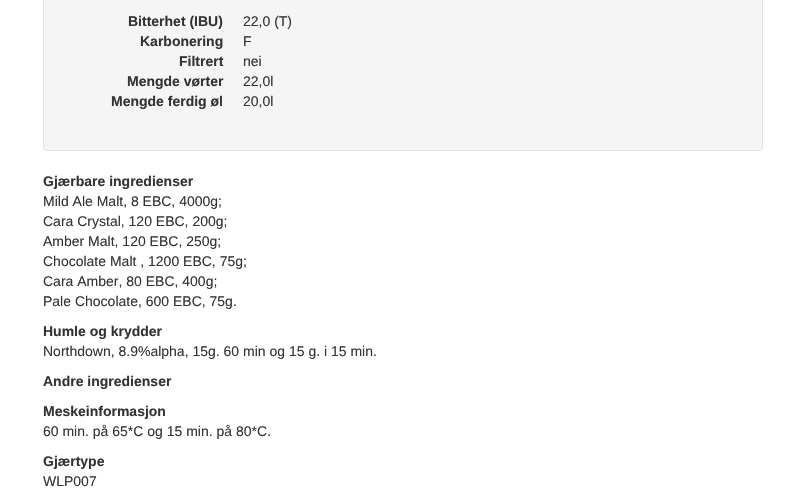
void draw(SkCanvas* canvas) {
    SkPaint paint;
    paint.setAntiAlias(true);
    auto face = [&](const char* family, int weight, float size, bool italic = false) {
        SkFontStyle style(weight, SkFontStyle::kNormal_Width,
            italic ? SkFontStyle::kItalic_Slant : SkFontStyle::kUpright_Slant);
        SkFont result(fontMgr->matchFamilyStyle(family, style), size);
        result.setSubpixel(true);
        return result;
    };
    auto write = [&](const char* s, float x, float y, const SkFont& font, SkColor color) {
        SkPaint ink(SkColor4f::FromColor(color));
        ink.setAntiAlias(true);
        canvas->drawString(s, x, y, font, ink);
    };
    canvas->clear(SK_ColorWHITE);
    paint.setColor(SkColorSetRGB(245, 245, 245));
    canvas->drawRoundRect(SkRect::MakeXYWH(43.5f, -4.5f, 719, 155), 3.5f, 3.5f, paint);
    paint.setStyle(SkPaint::kStroke_Style);
    paint.setStrokeWidth(1);
    paint.setColor(SkColorSetRGB(227, 227, 227));
    canvas->drawRoundRect(SkRect::MakeXYWH(43.5f, -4.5f, 719, 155), 3.5f, 3.5f, paint);
    auto kFont1 = face("Liberation Sans", 700, 14);
    write("Bitterhet (IBU)", 128, 26, kFont1, SkColorSetRGB(51, 51, 51));
    auto kFont2 = face("Liberation Sans", 400, 14);
    write("22,0 (T)", 243, 26, kFont2, SkColorSetRGB(51, 51, 51));
    write("Karbonering", 140, 46, kFont1, SkColorSetRGB(51, 51, 51));
    write("F", 243, 46, kFont2, SkColorSetRGB(51, 51, 51));
    write("Filtrert", 179, 66, kFont1, SkColorSetRGB(51, 51, 51));
    write("nei", 243, 66, kFont2, SkColorSetRGB(51, 51, 51));
    write("Mengde vørter", 127, 86, kFont1, SkColorSetRGB(51, 51, 51));
    write("22,0l", 243, 86, kFont2, SkColorSetRGB(51, 51, 51));
    write("Mengde ferdig øl", 111, 106, kFont1, SkColorSetRGB(51, 51, 51));
    write("20,0l", 243, 106, kFont2, SkColorSetRGB(51, 51, 51));
    write("Gjærbare ingredienser", 43, 186, kFont1, SkColorSetRGB(51, 51, 51));
    write("Mild Ale Malt, 8 EBC, 4000g;", 43, 206, kFont2, SkColorSetRGB(51, 51, 51));
    write("Cara Crystal, 120 EBC, 200g;", 43, 226, kFont2, SkColorSetRGB(51, 51, 51));
    write("Amber Malt, 120 EBC, 250g;", 43, 246, kFont2, SkColorSetRGB(51, 51, 51));
    write("Chocolate Malt , 1200 EBC, 75g;", 43, 266, kFont2, SkColorSetRGB(51, 51, 51));
    write("Cara Amber, 80 EBC, 400g;", 43, 286, kFont2, SkColorSetRGB(51, 51, 51));
    write("Pale Chocolate, 600 EBC, 75g.", 43, 306, kFont2, SkColorSetRGB(51, 51, 51));
    write("Humle og krydder", 43, 336, kFont1, SkColorSetRGB(51, 51, 51));
    write("Northdown, 8.9%alpha, 15g. 60 min og 15 g. i 15 min.", 43, 356, kFont2, SkColorSetRGB(51, 51, 51));
    write("Andre ingredienser", 43, 386, kFont1, SkColorSetRGB(51, 51, 51));
    write("Meskeinformasjon", 43, 416, kFont1, SkColorSetRGB(51, 51, 51));
    write("60 min. på 65*C og 15 min. på 80*C.", 43, 436, kFont2, SkColorSetRGB(51, 51, 51));
    write("Gjærtype", 43, 466, kFont1, SkColorSetRGB(51, 51, 51));
    write("WLP007", 43, 486, kFont2, SkColorSetRGB(51, 51, 51));
}
